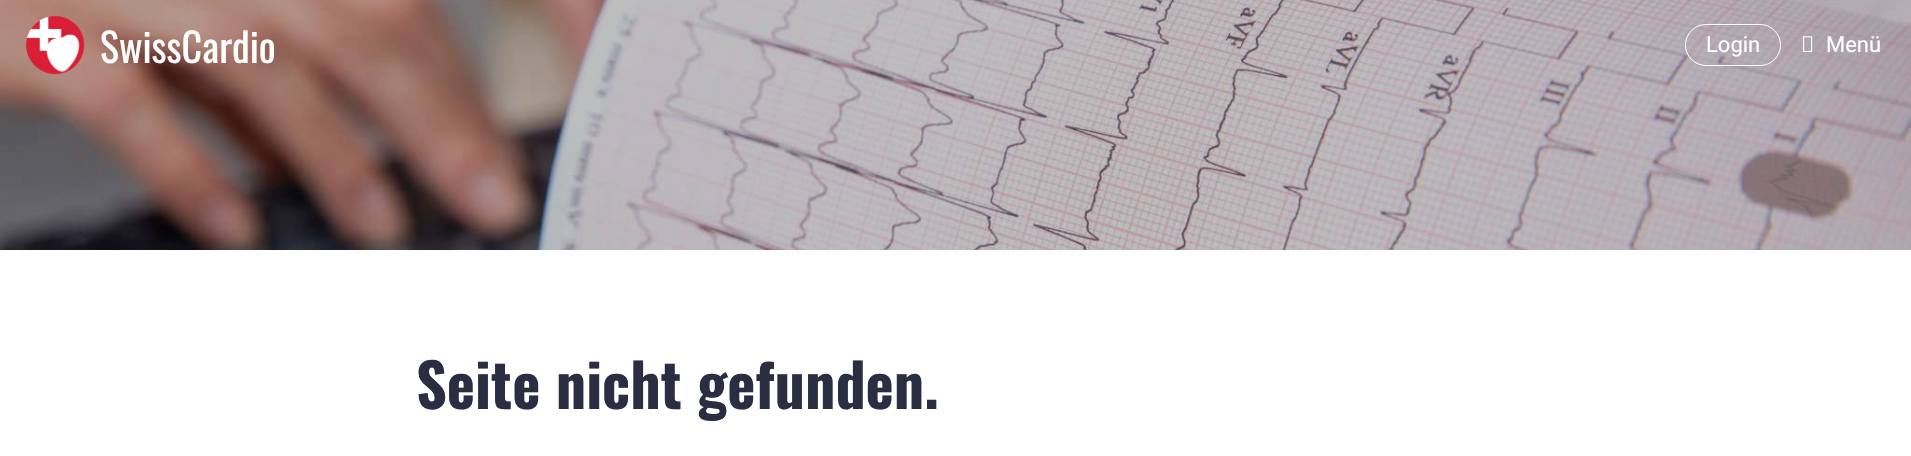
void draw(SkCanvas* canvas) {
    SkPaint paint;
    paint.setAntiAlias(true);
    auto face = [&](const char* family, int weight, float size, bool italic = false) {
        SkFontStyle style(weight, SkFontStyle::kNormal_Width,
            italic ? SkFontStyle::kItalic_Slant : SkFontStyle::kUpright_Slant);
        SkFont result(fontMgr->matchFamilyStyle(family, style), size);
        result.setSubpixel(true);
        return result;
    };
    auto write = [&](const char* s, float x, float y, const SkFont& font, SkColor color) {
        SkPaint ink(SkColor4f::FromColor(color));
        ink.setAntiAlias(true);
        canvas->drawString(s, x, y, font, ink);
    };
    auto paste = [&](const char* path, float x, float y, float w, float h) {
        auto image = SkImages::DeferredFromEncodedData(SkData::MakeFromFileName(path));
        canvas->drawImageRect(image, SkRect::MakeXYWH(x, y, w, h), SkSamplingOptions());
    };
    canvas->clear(SK_ColorWHITE);
    paste("pic3.png", 0, 0, 1911, 250);
    paste("pic1.png", 25, 15, 60, 60);
    auto kFont1 = face("Oswald", 400, 40);
    write("SwissCardio", 100, 63, kFont1, SK_ColorWHITE);
    paint.setStyle(SkPaint::kStroke_Style);
    paint.setStrokeWidth(1);
    paint.setColor(SK_ColorWHITE);
    canvas->drawRoundRect(SkRect::MakeXYWH(1685.5f, 24.5f, 95, 41), 20.5f, 20.5f, paint);
    auto kFont2 = face("Roboto", 400, 22);
    write("Login", 1706, 52, kFont2, SK_ColorWHITE);
    paste("pic2.png", 1803, 36, 10, 16);
    write("Menü", 1826, 52, kFont2, SK_ColorWHITE);
    auto kFont3 = face("Oswald", 700, 60);
    write("Seite nicht gefunden.", 416, 409, kFont3, SkColorSetRGB(43, 45, 66));
}
